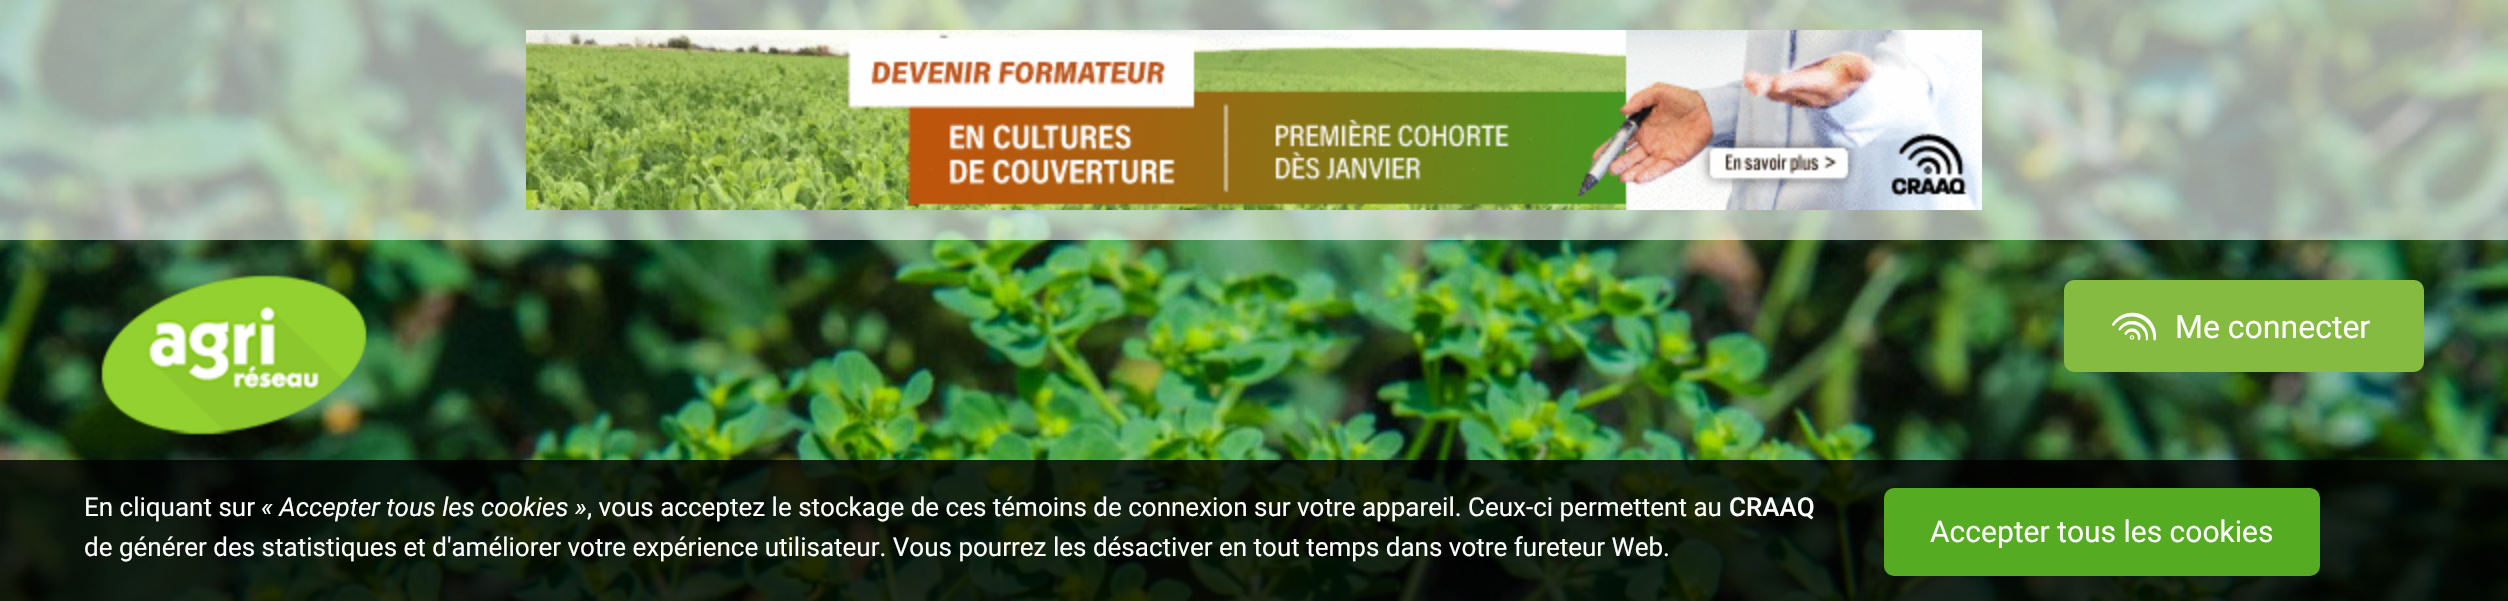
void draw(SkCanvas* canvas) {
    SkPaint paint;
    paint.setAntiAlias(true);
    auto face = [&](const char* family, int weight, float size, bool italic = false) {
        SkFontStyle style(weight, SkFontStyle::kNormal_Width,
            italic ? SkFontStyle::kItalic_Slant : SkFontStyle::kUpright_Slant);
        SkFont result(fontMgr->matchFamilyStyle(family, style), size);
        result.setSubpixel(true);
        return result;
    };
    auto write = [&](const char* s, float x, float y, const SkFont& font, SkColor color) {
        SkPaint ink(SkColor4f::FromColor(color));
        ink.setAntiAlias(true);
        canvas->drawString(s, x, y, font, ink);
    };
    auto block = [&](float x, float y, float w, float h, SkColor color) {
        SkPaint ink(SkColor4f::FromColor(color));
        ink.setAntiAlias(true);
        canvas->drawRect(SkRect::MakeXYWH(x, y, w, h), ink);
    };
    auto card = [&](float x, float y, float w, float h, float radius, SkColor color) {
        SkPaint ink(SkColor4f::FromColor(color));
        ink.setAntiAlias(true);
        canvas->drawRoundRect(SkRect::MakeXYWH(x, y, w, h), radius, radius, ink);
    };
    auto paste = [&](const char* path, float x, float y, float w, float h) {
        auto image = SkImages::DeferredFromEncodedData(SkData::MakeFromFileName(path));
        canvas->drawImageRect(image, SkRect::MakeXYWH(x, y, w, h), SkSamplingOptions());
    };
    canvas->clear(SK_ColorWHITE);
    paste("pic1.png", 0, 0, 2508, 601);
    block(0, 0, 2508, 240, SkColorSetARGB(153, 255, 255, 255));
    paste("pic2.png", 526, 30, 1456, 180);
    paste("pic3.png", 101, 275, 266, 160);
    card(2064, 280, 360, 92, 10, SkColorSetRGB(134, 187, 65));
    paste("pic4.png", 2112, 312, 45, 29);
    auto kFont1 = face("Roboto", 400, 32);
    write("Me connecter", 2175, 338, kFont1, SK_ColorWHITE);
    block(0, 460, 2508, 141, SkColorSetARGB(204, 0, 0, 0));
    auto kFont2 = face("Roboto", 400, 26);
    write("En cliquant sur", 84, 516, kFont2, SK_ColorWHITE);
    auto kFont3 = face("Roboto", 400, 26, true);
    write("« Accepter tous les cookies »", 261, 516, kFont3, SK_ColorWHITE);
    write(", vous acceptez le stockage de ces témoins de connexion sur votre appareil. Ceux-ci permettent au", 587, 516, kFont2, SK_ColorWHITE);
    auto kFont4 = face("Roboto", 500, 26);
    write("CRAAQ", 1729, 516, kFont4, SK_ColorWHITE);
    write("de générer des statistiques et d'améliorer votre expérience utilisateur. Vous pourrez les désactiver en tout temps dans votre fureteur Web.", 84, 556, kFont2, SK_ColorWHITE);
    card(1884, 488, 436, 88, 10, SkColorSetRGB(85, 171, 34));
    auto kFont5 = face("Roboto", 400, 30);
    write("Accepter tous les cookies", 1930, 542, kFont5, SK_ColorWHITE);
}
